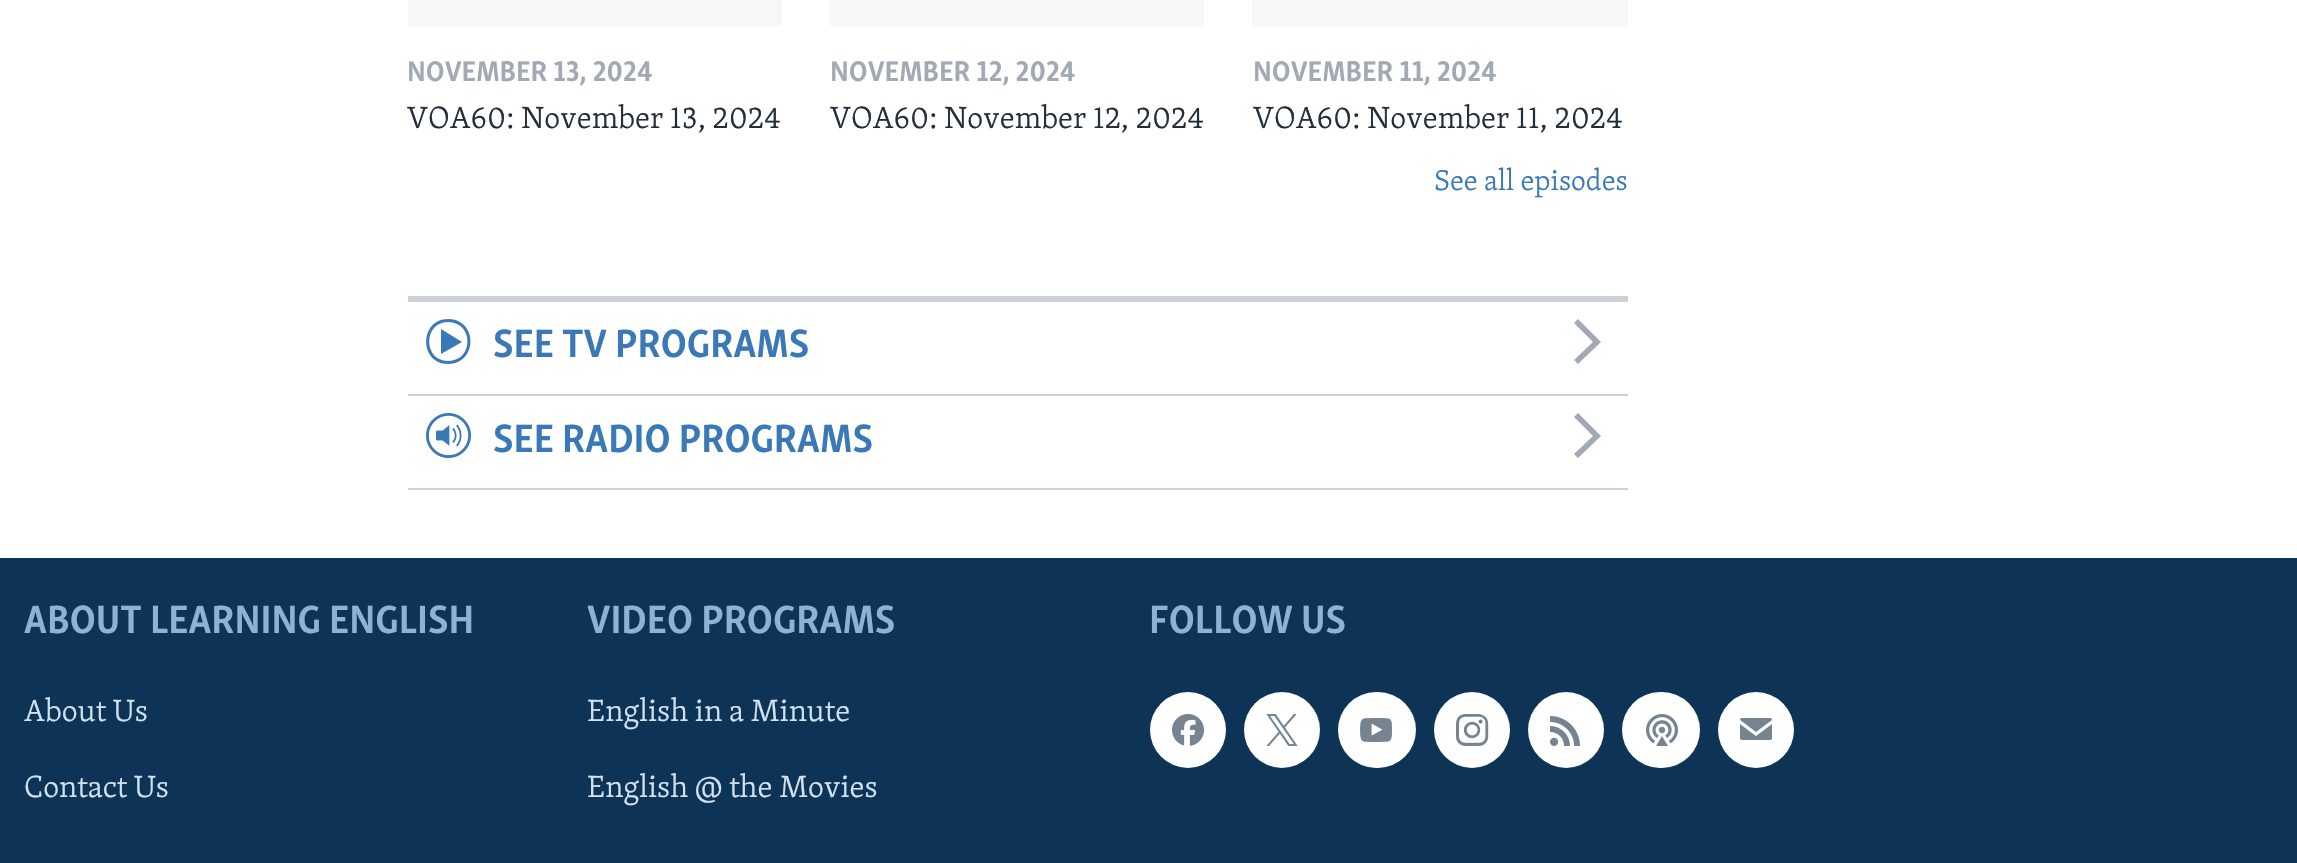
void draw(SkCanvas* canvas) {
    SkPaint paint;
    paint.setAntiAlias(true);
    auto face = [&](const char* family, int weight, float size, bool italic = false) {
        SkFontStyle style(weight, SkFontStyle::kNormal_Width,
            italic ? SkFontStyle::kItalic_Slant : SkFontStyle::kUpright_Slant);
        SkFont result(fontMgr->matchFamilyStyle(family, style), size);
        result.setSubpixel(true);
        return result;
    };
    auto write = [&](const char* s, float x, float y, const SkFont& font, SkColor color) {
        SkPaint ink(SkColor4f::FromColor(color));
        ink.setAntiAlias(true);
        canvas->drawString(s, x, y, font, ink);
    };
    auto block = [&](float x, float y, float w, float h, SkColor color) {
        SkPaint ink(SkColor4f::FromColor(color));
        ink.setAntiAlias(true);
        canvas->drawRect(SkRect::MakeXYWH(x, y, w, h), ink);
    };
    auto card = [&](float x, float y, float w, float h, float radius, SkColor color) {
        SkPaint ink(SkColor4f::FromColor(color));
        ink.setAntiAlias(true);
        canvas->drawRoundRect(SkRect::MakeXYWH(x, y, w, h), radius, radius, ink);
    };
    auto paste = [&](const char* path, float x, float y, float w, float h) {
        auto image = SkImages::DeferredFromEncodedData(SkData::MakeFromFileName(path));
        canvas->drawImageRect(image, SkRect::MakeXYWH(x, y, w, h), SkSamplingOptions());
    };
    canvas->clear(SK_ColorWHITE);
    block(408, 0, 374, 26, SkColorSetRGB(246, 247, 248));
    auto kFont1 = face("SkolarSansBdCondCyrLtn", 700, 29.25f);
    write("NOVEMBER 13, 2024", 407, 81, kFont1, SkColorSetRGB(161, 170, 180));
    auto kFont2 = face("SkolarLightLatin", 300, 31.5f);
    write("VOA60: November 13, 2024", 407, 128, kFont2, SkColorSetRGB(34, 47, 58));
    block(830, 0, 374, 26, SkColorSetRGB(246, 247, 248));
    write("NOVEMBER 12, 2024", 830, 81, kFont1, SkColorSetRGB(161, 170, 180));
    write("VOA60: November 12, 2024", 830, 128, kFont2, SkColorSetRGB(34, 47, 58));
    block(1252, 0, 376, 26, SkColorSetRGB(246, 247, 248));
    write("NOVEMBER 11, 2024", 1253, 81, kFont1, SkColorSetRGB(161, 170, 180));
    write("VOA60: November 11, 2024", 1253, 128, kFont2, SkColorSetRGB(34, 47, 58));
    auto kFont3 = face("SkolarLightLatin", 300, 29.25f);
    write("See all episodes", 1434, 190, kFont3, SkColorSetRGB(58, 121, 183));
    block(408, 296, 1220, 6, SkColorSetRGB(203, 209, 214));
    block(408, 394, 1220, 2, SkColorSetRGB(203, 209, 214));
    paint.setColor(SkColorSetRGB(58, 121, 183));
    canvas->drawPath(SkPathBuilder().moveTo(441, 354).lineTo(462, 342).lineTo(441, 329).close().moveTo(448, 322).cubicTo(474, 322, 474, 361, 448, 361).cubicTo(423, 361, 423, 322, 448, 322).close().moveTo(448, 319).cubicTo(419, 319, 419, 364, 448, 364).cubicTo(478, 364, 478, 319, 448, 319).close().detach(), paint);
    auto kFont4 = face("SkolarSansBdCondCyrLtn", 700, 40.5f);
    write("SEE TV PROGRAMS", 493, 357, kFont4, SkColorSetRGB(58, 121, 183));
    paint.setColor(SkColorSetRGB(161, 170, 180));
    canvas->drawPath(SkPathBuilder().moveTo(1578, 364).lineTo(1601, 342).lineTo(1578, 319).lineTo(1574, 323).lineTo(1593, 342).lineTo(1574, 360).close().detach(), paint);
    block(408, 488, 1220, 2, SkColorSetRGB(203, 209, 214));
    paste("pic1.png", 426, 413, 45, 45);
    write("SEE RADIO PROGRAMS", 493, 452, kFont4, SkColorSetRGB(58, 121, 183));
    canvas->drawPath(SkPathBuilder().moveTo(1578, 458).lineTo(1601, 436).lineTo(1578, 413).lineTo(1574, 417).lineTo(1593, 436).lineTo(1574, 454).close().detach(), paint);
    block(0, 558, 2297, 305, SkColorSetRGB(13, 52, 86));
    write("ABOUT LEARNING ENGLISH", 24, 633, kFont4, SkColorSetRGB(141, 179, 212));
    write("About Us", 24, 721, kFont2, SkColorSetRGB(209, 225, 238));
    write("Contact Us", 24, 797, kFont2, SkColorSetRGB(209, 225, 238));
    write("VIDEO PROGRAMS", 587, 633, kFont4, SkColorSetRGB(141, 179, 212));
    write("English in a Minute", 587, 721, kFont2, SkColorSetRGB(209, 225, 238));
    write("English @ the Movies", 587, 797, kFont2, SkColorSetRGB(209, 225, 238));
    write("FOLLOW US", 1149, 633, kFont4, SkColorSetRGB(141, 179, 212));
    paint.setColor(SK_ColorWHITE);
    canvas->drawCircle(1188, 730, 38, paint);
    paste("pic2.png", 1172, 714, 32, 32);
    canvas->drawCircle(1282, 730, 38, paint);
    paste("pic3.png", 1266, 714, 32, 32);
    card(1338, 692, 78, 76, 38, SK_ColorWHITE);
    paste("pic4.png", 1360, 718, 32, 24);
    canvas->drawCircle(1472, 730, 38, paint);
    paste("pic5.png", 1456, 714, 33, 32);
    canvas->drawCircle(1566, 730, 38, paint);
    paste("pic6.png", 1550, 716, 30, 30);
    card(1622, 692, 78, 76, 38, SK_ColorWHITE);
    paste("pic7.png", 1646, 714, 32, 32);
    canvas->drawCircle(1756, 730, 38, paint);
    paste("pic8.png", 1740, 718, 32, 22);
}
